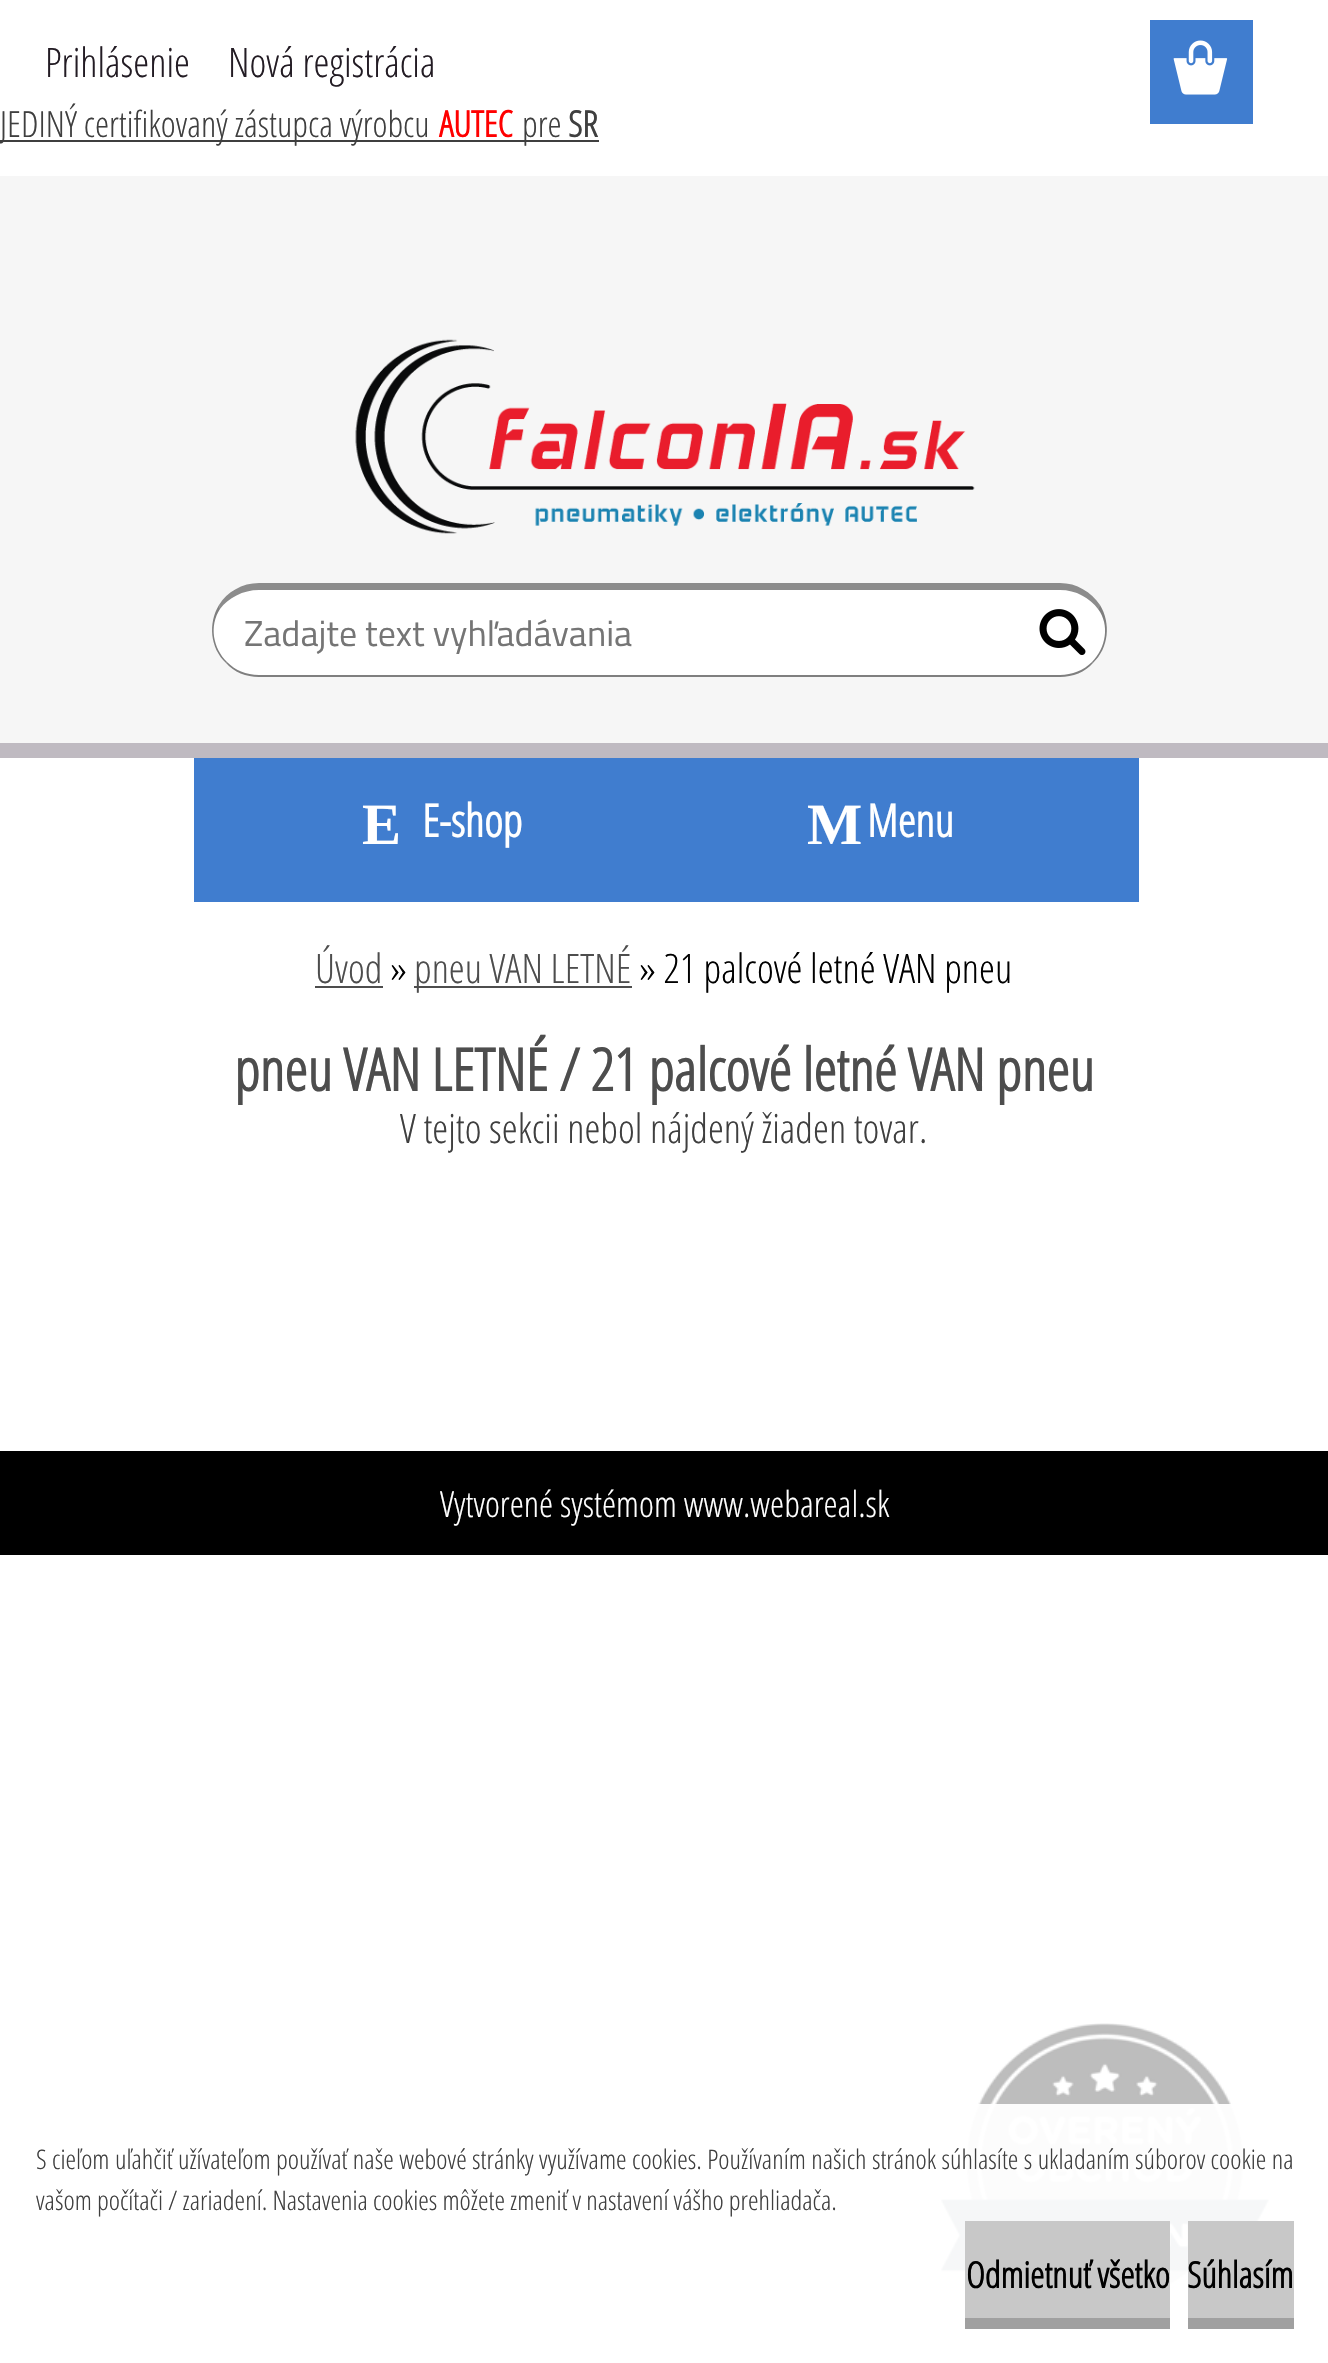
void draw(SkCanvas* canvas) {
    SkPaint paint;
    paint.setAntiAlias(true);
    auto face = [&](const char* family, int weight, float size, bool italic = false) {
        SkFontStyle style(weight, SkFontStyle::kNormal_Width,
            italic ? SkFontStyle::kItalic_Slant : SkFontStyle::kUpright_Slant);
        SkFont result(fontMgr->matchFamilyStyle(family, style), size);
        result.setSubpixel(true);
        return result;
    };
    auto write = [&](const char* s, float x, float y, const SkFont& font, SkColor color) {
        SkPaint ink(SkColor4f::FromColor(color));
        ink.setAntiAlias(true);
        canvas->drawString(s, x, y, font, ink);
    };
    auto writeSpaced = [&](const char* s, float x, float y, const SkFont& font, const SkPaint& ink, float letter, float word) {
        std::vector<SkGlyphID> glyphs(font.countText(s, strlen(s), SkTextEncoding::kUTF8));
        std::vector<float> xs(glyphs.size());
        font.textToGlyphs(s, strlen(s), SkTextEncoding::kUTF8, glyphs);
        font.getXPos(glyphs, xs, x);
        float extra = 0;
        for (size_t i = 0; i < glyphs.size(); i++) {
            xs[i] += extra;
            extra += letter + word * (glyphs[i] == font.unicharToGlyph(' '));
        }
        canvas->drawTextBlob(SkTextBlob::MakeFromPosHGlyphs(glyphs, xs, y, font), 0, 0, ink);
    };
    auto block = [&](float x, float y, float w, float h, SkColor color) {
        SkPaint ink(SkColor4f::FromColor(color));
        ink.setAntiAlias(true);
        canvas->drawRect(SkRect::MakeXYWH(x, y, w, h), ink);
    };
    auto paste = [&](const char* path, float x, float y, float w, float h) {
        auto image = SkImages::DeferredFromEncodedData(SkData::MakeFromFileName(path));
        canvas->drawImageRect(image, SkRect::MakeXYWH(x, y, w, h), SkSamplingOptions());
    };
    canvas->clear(SK_ColorWHITE);
    auto kFont1 = face("Open Sans Condensed", 300, 40.5f);
    write("Prihlásenie", 45, 77, kFont1, SkColorSetRGB(35, 28, 36));
    write("Nová registrácia", 228, 77, kFont1, SkColorSetRGB(35, 28, 36));
    block(1150, 20, 103, 104, SkColorSetRGB(64, 125, 207));
    paste("pic1.png", 1173, 40, 55, 55);
    block(194, 758, 945, 144, SkColorSetRGB(64, 125, 207));
    auto kFont2 = face("Liberation Serif", 700, 58.5f);
    write("E", 362, 844, kFont2, SK_ColorWHITE);
    auto kFont3 = face("Open Sans Condensed", 700, 45);
    write("E-shop", 422, 837, kFont3, SK_ColorWHITE);
    write("M", 807, 844, kFont2, SK_ColorWHITE);
    write("Menu", 867, 837, kFont3, SK_ColorWHITE);
    write("Úvod", 315, 983, kFont1, SkColorSetRGB(77, 77, 77));
    block(315, 986, 68, 2, SkColorSetRGB(77, 77, 77));
    write("»", 390, 983, kFont1, SK_ColorBLACK);
    block(414, 986, 218, 2, SkColorSetRGB(77, 77, 77));
    write("pneu VAN LETNÉ", 414, 983, kFont1, SkColorSetRGB(77, 77, 77));
    write("» 21 palcové letné VAN pneu", 639, 983, kFont1, SK_ColorBLACK);
    auto kFont4 = face("Open Sans Condensed", 700, 58.5f);
    write("pneu VAN LETNÉ / 21 palcové letné VAN pneu", 234, 1091, kFont4, SkColorSetRGB(77, 77, 77));
    write("V tejto sekcii nebol nájdený žiaden tovar.", 400, 1143, kFont1, SkColorSetRGB(63, 63, 63));
    block(0, 140, 599, 2, SkColorSetRGB(63, 63, 63));
    auto kFont5 = face("Open Sans Condensed", 300, 36);
    write("JEDINÝ certifikovaný zástupca výrobcu", 0, 137, kFont5, SkColorSetRGB(63, 63, 63));
    auto kFont6 = face("Open Sans Condensed", 700, 36);
    write("AUTEC", 439, 137, kFont6, SkColorSetRGB(255, 0, 0));
    write("pre", 522, 137, kFont5, SkColorSetRGB(63, 63, 63));
    write("SR", 568, 137, kFont6, SkColorSetRGB(63, 63, 63));
    block(0, 176, 1328, 567, SkColorSetRGB(246, 246, 246));
    block(0, 743, 1328, 15, SkColorSetRGB(191, 186, 193));
    paste("pic2.png", 355, 339, 620, 195);
    paint.setColor(SK_ColorWHITE);
    canvas->drawPath(SkPathBuilder().moveTo(259, 583).lineTo(1004, 583).lineTo(1004, 677).lineTo(259, 677).cubicTo(233, 677, 212, 656, 212, 630).cubicTo(212, 604, 233, 583, 259, 583).close().detach(), paint);
    paint.setColor(SkColorSetRGB(140, 140, 140));
    canvas->drawPath(SkPathBuilder().moveTo(259, 583).lineTo(1004, 583).lineTo(1004, 590).lineTo(259, 590).cubicTo(243, 590, 228, 598, 220, 609).lineTo(219, 605).cubicTo(227, 592, 242, 583, 259, 583).close().detach(), paint);
    paint.setColor(SkColorSetARGB(128, 0, 0, 0));
    canvas->drawPath(SkPathBuilder().moveTo(1004, 677).lineTo(259, 677).cubicTo(246, 677, 234, 672, 226, 663).lineTo(227, 662).cubicTo(235, 670, 246, 675, 259, 675).lineTo(1004, 675).close().detach(), paint);
    canvas->drawPath(SkPathBuilder().moveTo(227, 662).lineTo(226, 663).cubicTo(210, 648, 208, 623, 219, 605).lineTo(220, 609).cubicTo(209, 626, 213, 648, 227, 662).close().detach(), paint);
    auto kFont7 = face("Titillium Web", 400, 36);
    write("Zadajte text vyhľadávania", 244, 646, kFont7, SkColorSetRGB(117, 117, 117));
    paint.setColor(SK_ColorWHITE);
    canvas->drawPath(SkPathBuilder().moveTo(1004, 583).lineTo(1060, 583).cubicTo(1086, 583, 1107, 604, 1107, 630).cubicTo(1107, 656, 1086, 677, 1060, 677).lineTo(1004, 677).close().detach(), paint);
    paint.setColor(SkColorSetRGB(140, 140, 140));
    canvas->drawPath(SkPathBuilder().moveTo(1004, 583).lineTo(1060, 583).cubicTo(1077, 583, 1091, 592, 1100, 605).lineTo(1098, 609).cubicTo(1090, 598, 1076, 590, 1060, 590).lineTo(1004, 590).close().detach(), paint);
    paint.setColor(SkColorSetARGB(128, 0, 0, 0));
    canvas->drawPath(SkPathBuilder().moveTo(1100, 605).cubicTo(1111, 623, 1109, 648, 1093, 663).lineTo(1092, 662).cubicTo(1106, 648, 1110, 625, 1098, 609).close().detach(), paint);
    canvas->drawPath(SkPathBuilder().moveTo(1093, 663).lineTo(1092, 662).cubicTo(1084, 670, 1072, 675, 1060, 675).lineTo(1004, 675).lineTo(1004, 677).lineTo(1060, 677).cubicTo(1073, 677, 1085, 672, 1093, 663).close().detach(), paint);
    paste("pic3.png", 1039, 609, 47, 46);
    block(0, 1451, 1328, 104, SK_ColorBLACK);
    write("Vytvorené systémom www.webareal.sk", 440, 1517, kFont5, SK_ColorWHITE);
    paste("pic4.png", 939, 2023, 331, 276);
    block(939, 2104, 331, 195, SkColorSetARGB(242, 255, 255, 255));
    auto kFont8 = face("Open Sans Condensed", 300, 27);
    paint.setColor(SkColorSetRGB(63, 63, 63));
    writeSpaced("S cieľom uľahčiť užívateľom používať naše webové stránky využívame cookies. Používaním našich stránok súhlasíte s ukladaním súborov cookie na", 36, 2169, kFont8, paint, 0, 0.3f);
    write("vašom počítači / zariadení. Nastavenia cookies môžete zmeniť v nastavení vášho prehliadača.", 36, 2210, kFont8, SkColorSetRGB(63, 63, 63));
    block(965, 2221, 205, 97, SkColorSetRGB(200, 200, 200));
    block(965, 2318, 205, 11, SkColorSetRGB(160, 160, 160));
    write("Odmietnuť všetko", 966, 2288, kFont6, SK_ColorBLACK);
    block(1188, 2221, 106, 97, SkColorSetRGB(200, 200, 200));
    block(1188, 2318, 106, 11, SkColorSetRGB(160, 160, 160));
    write("Súhlasím", 1187, 2288, kFont6, SK_ColorBLACK);
}
